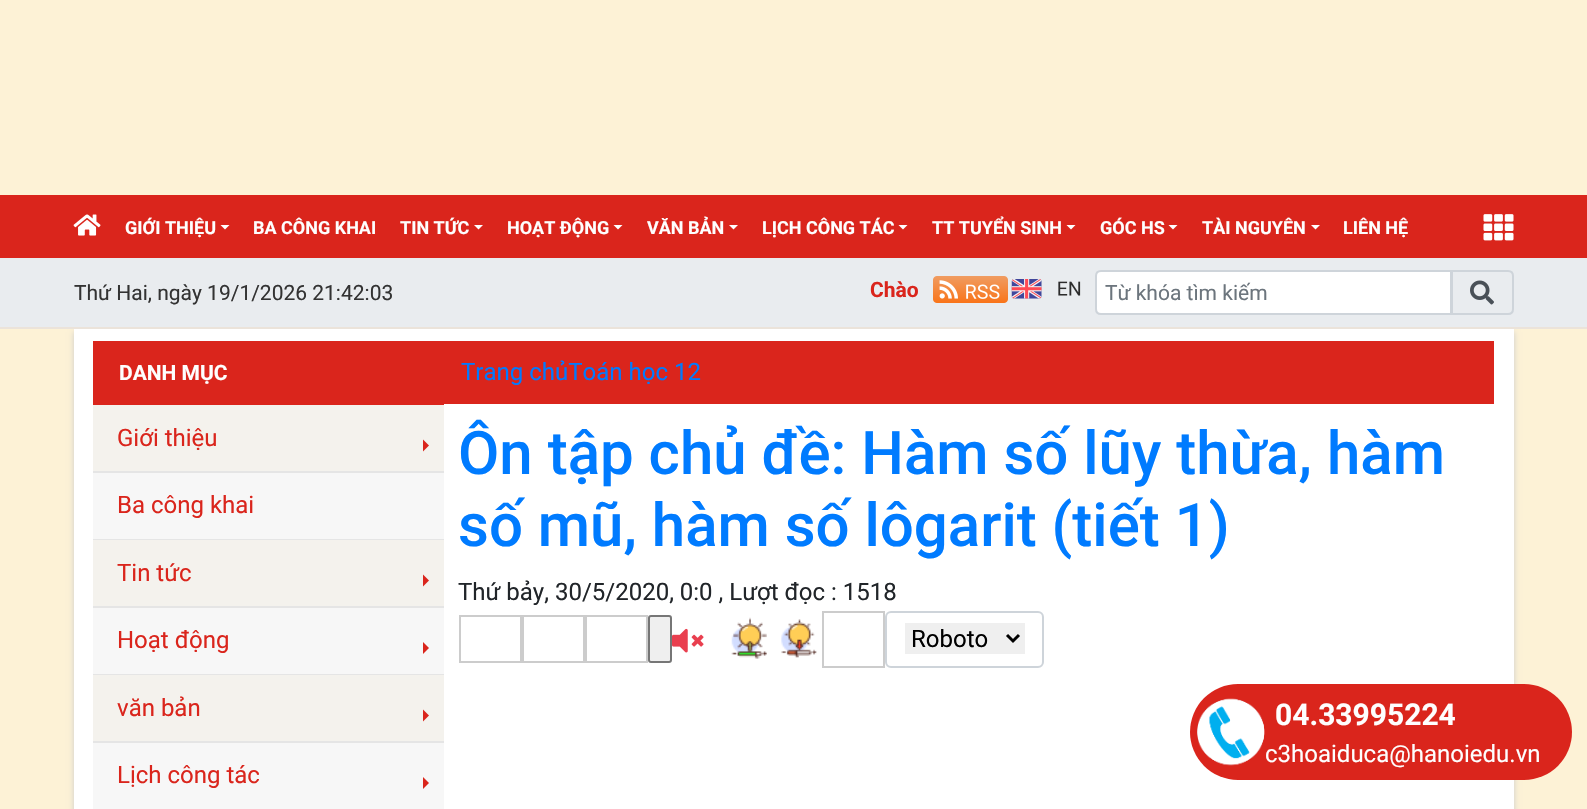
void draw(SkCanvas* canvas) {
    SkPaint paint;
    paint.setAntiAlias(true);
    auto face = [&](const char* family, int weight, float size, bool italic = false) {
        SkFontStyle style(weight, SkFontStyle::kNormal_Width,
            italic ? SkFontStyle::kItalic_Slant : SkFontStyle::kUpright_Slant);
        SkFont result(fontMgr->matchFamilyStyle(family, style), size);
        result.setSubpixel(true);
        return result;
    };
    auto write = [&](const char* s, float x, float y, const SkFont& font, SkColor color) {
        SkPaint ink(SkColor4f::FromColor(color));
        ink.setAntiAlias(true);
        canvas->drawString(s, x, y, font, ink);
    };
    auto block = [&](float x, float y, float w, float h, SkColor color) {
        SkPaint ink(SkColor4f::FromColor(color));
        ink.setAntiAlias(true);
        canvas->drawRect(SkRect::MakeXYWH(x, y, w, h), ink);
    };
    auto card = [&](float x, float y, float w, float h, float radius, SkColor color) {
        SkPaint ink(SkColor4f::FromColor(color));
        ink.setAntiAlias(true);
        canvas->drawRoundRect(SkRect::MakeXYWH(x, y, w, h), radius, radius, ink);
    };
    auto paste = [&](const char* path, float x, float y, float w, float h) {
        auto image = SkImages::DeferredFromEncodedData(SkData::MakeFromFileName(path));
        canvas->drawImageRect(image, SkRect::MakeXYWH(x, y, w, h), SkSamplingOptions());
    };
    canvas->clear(SkColorSetRGB(253, 242, 214));
    block(0, 195, 1587, 63, SkColorSetRGB(218, 37, 28));
    paste("pic1.png", 73, 214, 28, 22);
    auto kFont1 = face("Roboto", 700, 18);
    write("GIỚI THIỆU", 125, 234, kFont1, SkColorSetRGB(254, 254, 254));
    paint.setColor(SK_ColorWHITE);
    canvas->drawPath(SkPathBuilder().moveTo(220.5f, 225).lineTo(229.5f, 225).lineTo(225, 229.5f).close().detach(), paint);
    write("BA CÔNG KHAI", 253, 234, kFont1, SkColorSetRGB(254, 254, 254));
    write("TIN TỨC", 400, 234, kFont1, SkColorSetRGB(254, 254, 254));
    canvas->drawPath(SkPathBuilder().moveTo(474, 225).lineTo(483, 225).lineTo(478.5f, 229.5f).close().detach(), paint);
    write("HOẠT ĐỘNG", 507, 234, kFont1, SkColorSetRGB(254, 254, 254));
    canvas->drawPath(SkPathBuilder().moveTo(613.5f, 225).lineTo(622.5f, 225).lineTo(618, 229.5f).close().detach(), paint);
    write("VĂN BẢN", 647, 234, kFont1, SkColorSetRGB(254, 254, 254));
    canvas->drawPath(SkPathBuilder().moveTo(729, 225).lineTo(738, 225).lineTo(733.5f, 229.5f).close().detach(), paint);
    write("LỊCH CÔNG TÁC", 762, 234, kFont1, SkColorSetRGB(254, 254, 254));
    canvas->drawPath(SkPathBuilder().moveTo(898.5f, 225).lineTo(907.5f, 225).lineTo(903, 229.5f).close().detach(), paint);
    write("TT TUYỂN SINH", 932, 234, kFont1, SkColorSetRGB(254, 254, 254));
    canvas->drawPath(SkPathBuilder().moveTo(1066.5f, 225).lineTo(1075.5f, 225).lineTo(1071, 229.5f).close().detach(), paint);
    write("GÓC HS", 1100, 234, kFont1, SkColorSetRGB(254, 254, 254));
    canvas->drawPath(SkPathBuilder().moveTo(1168.5f, 225).lineTo(1177.5f, 225).lineTo(1173, 229.5f).close().detach(), paint);
    write("TÀI NGUYÊN", 1202, 234, kFont1, SkColorSetRGB(254, 254, 254));
    canvas->drawPath(SkPathBuilder().moveTo(1311, 225).lineTo(1320, 225).lineTo(1315.5f, 229.5f).close().detach(), paint);
    write("LIÊN HỆ", 1343, 234, kFont1, SkColorSetRGB(254, 254, 254));
    paste("pic2.png", 1483, 214, 31, 27);
    paint.setColor(SkColorSetRGB(204, 204, 204));
    paint.setMaskFilter(SkMaskFilter::MakeBlur(kNormal_SkBlurStyle, 3));
    canvas->drawRect(SkRect::MakeXYWH(74, 332, 1440, 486), paint);
    paint.setMaskFilter(nullptr);
    block(0, 258, 1587, 69, SkColorSetRGB(233, 236, 239));
    block(0, 327, 1587, 2, SkColorSetRGB(235, 227, 218));
    auto kFont2 = face("Roboto", 400, 21);
    write("Thứ Hai, ngày 19/1/2026 21:42:03", 74, 300, kFont2, SkColorSetRGB(51, 51, 51));
    auto kFont3 = face("Roboto", 700, 21);
    write("Chào", 870, 297, kFont3, SkColorSetRGB(218, 37, 28));
    paste("pic3.png", 933, 276, 75, 27);
    paste("pic4.png", 1011, 279, 70, 20);
    paint.setStyle(SkPaint::kStroke_Style);
    paint.setStrokeWidth(2);
    paint.setColor(SkColorSetRGB(206, 212, 218));
    canvas->drawPath(SkPathBuilder().moveTo(1452, 271).lineTo(1508, 271).cubicTo(1511, 271, 1513, 273, 1513, 276).lineTo(1513, 309).cubicTo(1513, 312, 1511, 314, 1508, 314).lineTo(1452, 314).close().detach(), paint);
    paint.setStyle(SkPaint::kFill_Style);
    paint.setColor(SK_ColorWHITE);
    canvas->drawPath(SkPathBuilder().moveTo(1101, 271).lineTo(1451, 271).lineTo(1451, 314).lineTo(1101, 314).cubicTo(1098, 314, 1096, 312, 1096, 309).lineTo(1096, 276).cubicTo(1096, 273, 1098, 271, 1101, 271).close().detach(), paint);
    paint.setStyle(SkPaint::kStroke_Style);
    paint.setColor(SkColorSetRGB(206, 212, 218));
    canvas->drawPath(SkPathBuilder().moveTo(1101, 271).lineTo(1451, 271).lineTo(1451, 314).lineTo(1101, 314).cubicTo(1098, 314, 1096, 312, 1096, 309).lineTo(1096, 276).cubicTo(1096, 273, 1098, 271, 1101, 271).close().detach(), paint);
    write("Từ khóa tìm kiếm", 1105, 300, kFont2, SkColorSetRGB(108, 117, 125));
    paste("pic5.png", 1470, 280, 24, 25);
    block(74, 329, 1440, 480, SK_ColorWHITE);
    block(93, 341, 351, 64, SkColorSetRGB(218, 37, 28));
    write("DANH MỤC", 119, 380, kFont3, SkColorSetRGB(254, 254, 254));
    block(93, 405, 351, 66, SkColorSetRGB(244, 242, 237));
    block(93, 471, 351, 2, SkColorSetRGB(229, 229, 229));
    auto kFont4 = face("Roboto", 400, 24);
    write("Giới thiệu", 117, 446, kFont4, SkColorSetRGB(218, 37, 28));
    paint.setStyle(SkPaint::kFill_Style);
    paint.setColor(SkColorSetRGB(218, 37, 28));
    canvas->drawPath(SkPathBuilder().moveTo(423, 451.5f).lineTo(423, 439.5f).lineTo(429, 445.5f).close().detach(), paint);
    block(93, 473, 351, 66, SkColorSetRGB(247, 247, 247));
    block(93, 539, 351, 1, SkColorSetRGB(229, 229, 229));
    write("Ba công khai", 117, 513, kFont4, SkColorSetRGB(218, 37, 28));
    block(93, 540, 351, 66, SkColorSetRGB(244, 242, 237));
    block(93, 606, 351, 2, SkColorSetRGB(229, 229, 229));
    write("Tin tức", 117, 581, kFont4, SkColorSetRGB(218, 37, 28));
    canvas->drawPath(SkPathBuilder().moveTo(423, 586.5f).lineTo(423, 574.5f).lineTo(429, 580.5f).close().detach(), paint);
    block(93, 608, 351, 66, SkColorSetRGB(247, 247, 247));
    block(93, 674, 351, 1, SkColorSetRGB(229, 229, 229));
    write("Hoạt động", 117, 648, kFont4, SkColorSetRGB(218, 37, 28));
    canvas->drawPath(SkPathBuilder().moveTo(423, 654).lineTo(423, 642).lineTo(429, 648).close().detach(), paint);
    block(93, 675, 351, 66, SkColorSetRGB(244, 242, 237));
    block(93, 741, 351, 2, SkColorSetRGB(229, 229, 229));
    write("văn bản", 117, 716, kFont4, SkColorSetRGB(218, 37, 28));
    canvas->drawPath(SkPathBuilder().moveTo(423, 721.5f).lineTo(423, 709.5f).lineTo(429, 715.5f).close().detach(), paint);
    block(93, 743, 351, 66, SkColorSetRGB(247, 247, 247));
    write("Lịch công tác", 117, 783, kFont4, SkColorSetRGB(218, 37, 28));
    canvas->drawPath(SkPathBuilder().moveTo(423, 789).lineTo(423, 777).lineTo(429, 783).close().detach(), paint);
    block(444, 341, 1050, 63, SkColorSetRGB(218, 37, 28));
    write("Trang chủToán học 12", 461, 380, kFont4, SkColorSetRGB(0, 123, 255));
    auto kFont5 = face("Roboto", 500, 60);
    write("Ôn tập chủ đề: Hàm số lũy thừa, hàm", 458, 474, kFont5, SkColorSetRGB(0, 123, 255));
    write("số mũ, hàm số lôgarit (tiết 1)", 458, 546, kFont5, SkColorSetRGB(0, 123, 255));
    write("Thứ bảy, 30/5/2020, 0:0 , Lượt đọc : 1518", 458, 600, kFont4, SkColorSetRGB(33, 37, 41));
    paint.setStyle(SkPaint::kStroke_Style);
    paint.setColor(SkColorSetRGB(204, 204, 204));
    canvas->drawRect(SkRect::MakeXYWH(460, 616, 61, 46), paint);
    canvas->drawRect(SkRect::MakeXYWH(523, 616, 61, 46), paint);
    canvas->drawRect(SkRect::MakeXYWH(586, 616, 61, 46), paint);
    paint.setStyle(SkPaint::kFill_Style);
    paint.setColor(SkColorSetRGB(239, 239, 239));
    canvas->drawRoundRect(SkRect::MakeXYWH(649, 616, 22, 46), 2, 2, paint);
    paint.setStyle(SkPaint::kStroke_Style);
    paint.setColor(SkColorSetRGB(118, 118, 118));
    canvas->drawRoundRect(SkRect::MakeXYWH(649, 616, 22, 46), 2, 2, paint);
    paste("pic6.png", 672, 628, 32, 25);
    paste("pic7.png", 731, 617, 36, 42);
    paste("pic8.png", 781, 619, 36, 39);
    paint.setColor(SkColorSetRGB(204, 204, 204));
    canvas->drawRect(SkRect::MakeXYWH(823, 612, 61, 55), paint);
    paint.setColor(SkColorSetRGB(206, 212, 218));
    canvas->drawRoundRect(SkRect::MakeXYWH(886, 612, 157, 55), 5, 5, paint);
    block(905, 623, 120, 31, SkColorSetRGB(239, 239, 239));
    paint.setStrokeWidth(3);
    paint.setColor(SK_ColorBLACK);
    canvas->drawPath(SkPathBuilder().moveTo(1007, 635).lineTo(1013, 641).lineTo(1019, 635).detach(), paint);
    write("Roboto", 911, 647, kFont4, SK_ColorBLACK);
    card(1190, 684, 382, 96, 48, SkColorSetRGB(218, 37, 28));
    paste("pic9.png", 1197, 698, 68, 68);
    auto kFont6 = face("Roboto", 700, 30);
    write("04.33995224", 1275, 725, kFont6, SkColorSetRGB(254, 254, 254));
    write("c3hoaiduca@hanoiedu.vn", 1265, 762, kFont4, SkColorSetRGB(254, 254, 254));
}
